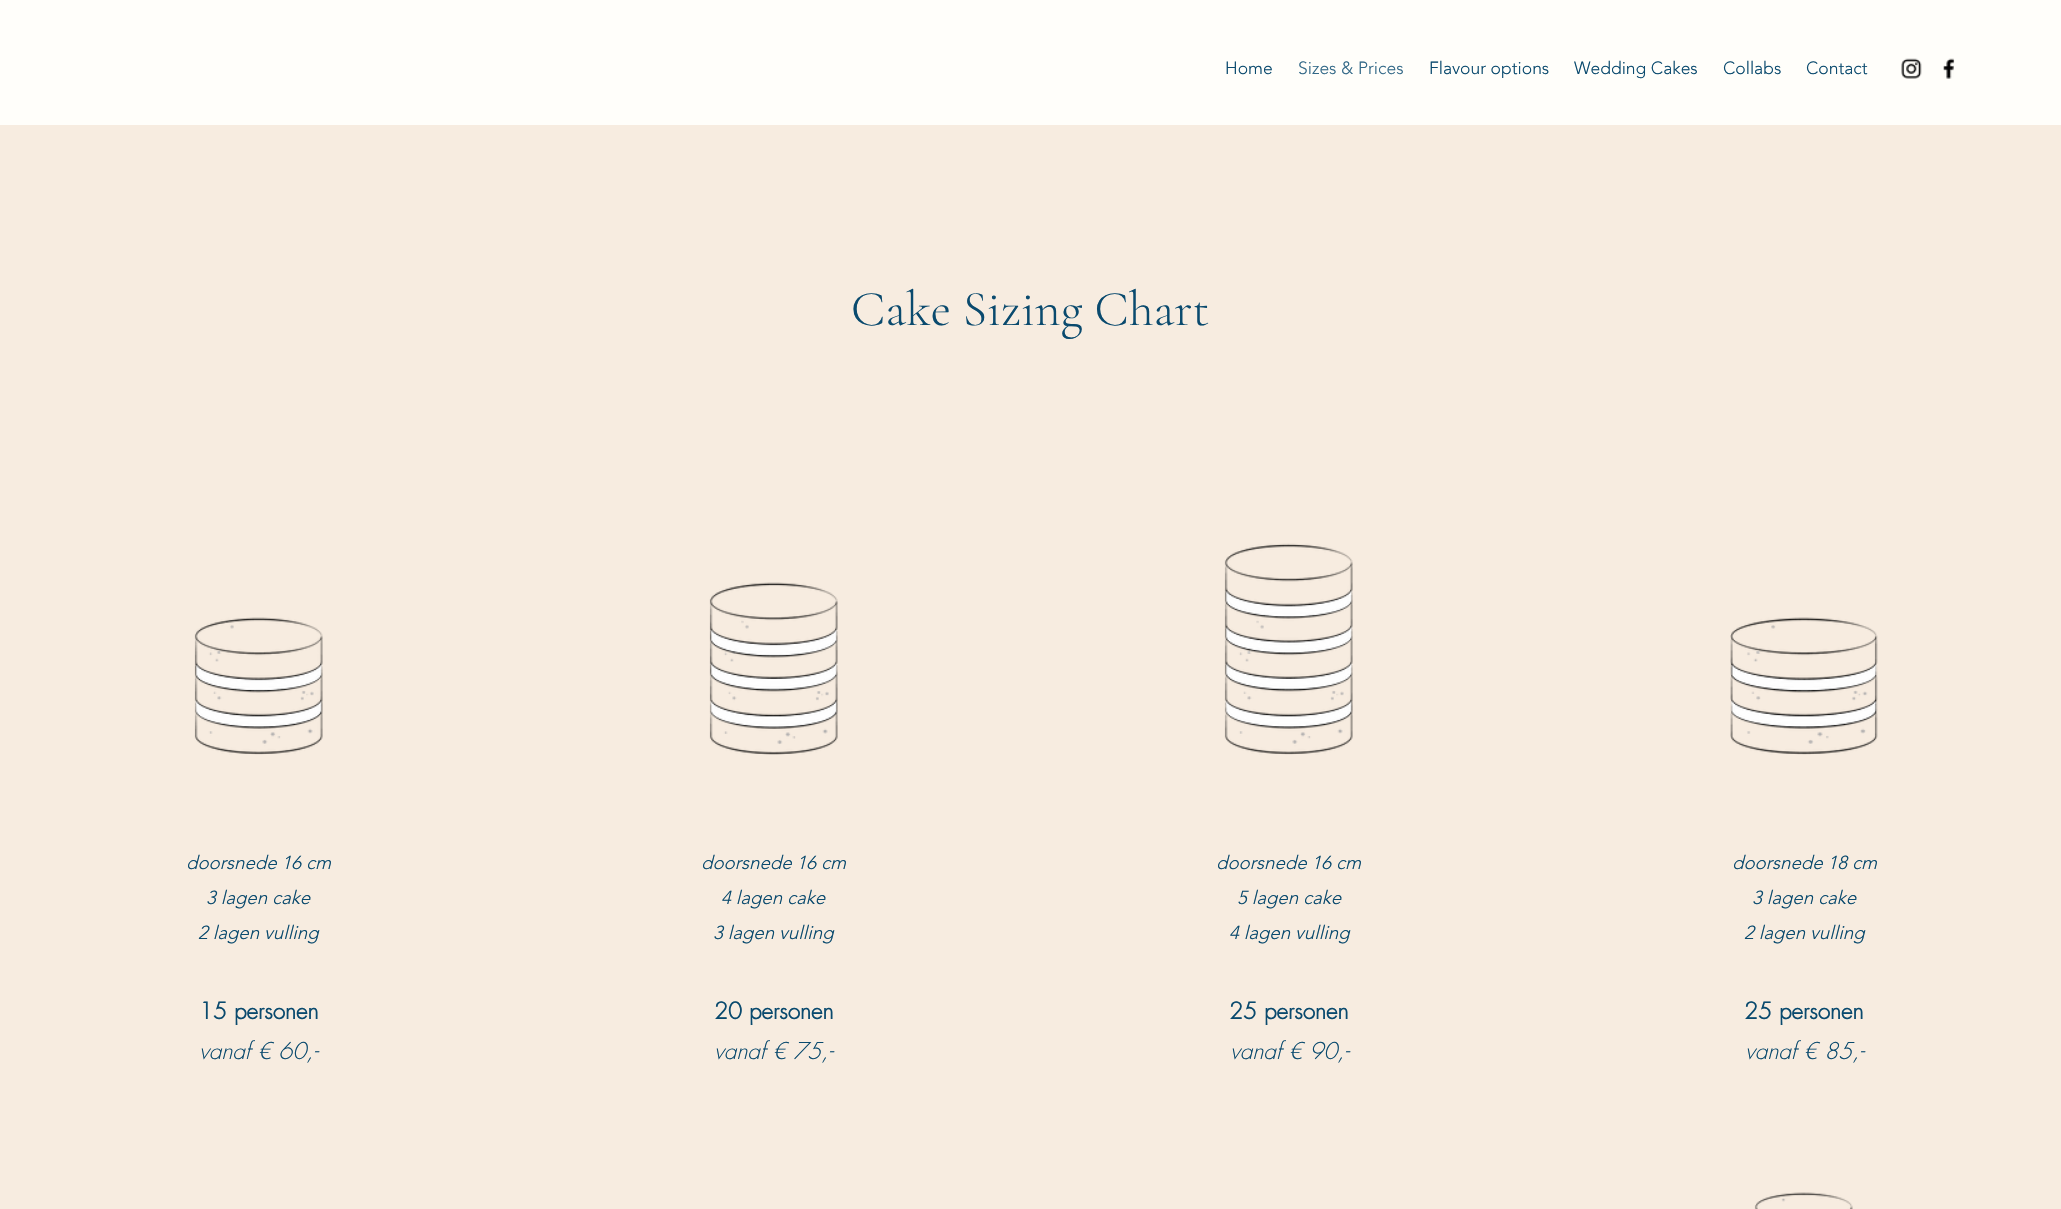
void draw(SkCanvas* canvas) {
    SkPaint paint;
    paint.setAntiAlias(true);
    auto face = [&](const char* family, int weight, float size, bool italic = false) {
        SkFontStyle style(weight, SkFontStyle::kNormal_Width,
            italic ? SkFontStyle::kItalic_Slant : SkFontStyle::kUpright_Slant);
        SkFont result(fontMgr->matchFamilyStyle(family, style), size);
        result.setSubpixel(true);
        return result;
    };
    auto write = [&](const char* s, float x, float y, const SkFont& font, SkColor color) {
        SkPaint ink(SkColor4f::FromColor(color));
        ink.setAntiAlias(true);
        canvas->drawString(s, x, y, font, ink);
    };
    auto block = [&](float x, float y, float w, float h, SkColor color) {
        SkPaint ink(SkColor4f::FromColor(color));
        ink.setAntiAlias(true);
        canvas->drawRect(SkRect::MakeXYWH(x, y, w, h), ink);
    };
    auto paste = [&](const char* path, float x, float y, float w, float h) {
        auto image = SkImages::DeferredFromEncodedData(SkData::MakeFromFileName(path));
        canvas->drawImageRect(image, SkRect::MakeXYWH(x, y, w, h), SkSamplingOptions());
    };
    canvas->clear(SkColorSetRGB(255, 254, 250));
    auto kFont1 = face("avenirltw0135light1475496", 300, 17.5f);
    write("Home", 1225, 74, kFont1, SkColorSetRGB(10, 74, 110));
    write("Sizes & Prices", 1298, 74, kFont1, SkColorSetRGB(50, 104, 135));
    write("Flavour options", 1429, 74, kFont1, SkColorSetRGB(10, 74, 110));
    write("Wedding Cakes", 1574, 74, kFont1, SkColorSetRGB(10, 74, 110));
    write("Collabs", 1723, 74, kFont1, SkColorSetRGB(10, 74, 110));
    write("Contact", 1806, 74, kFont1, SkColorSetRGB(10, 74, 110));
    paste("pic1.png", 1901, 58, 21, 21);
    paste("pic2.png", 1943, 58, 12, 21);
    block(0, 125, 2061, 1084, SkColorSetRGB(247, 236, 224));
    auto kFont2 = face("Cormorant Garamond", 300, 50);
    write("Cake Sizing Chart", 851, 325, kFont2, SkColorSetRGB(10, 74, 110));
    paste("pic3.png", 194, 617, 129, 138);
    auto kFont3 = face("avenirltw0135light1475496", 300, 18.75f, true);
    write("doorsnede 16 cm", 186, 869, kFont3, SkColorSetRGB(10, 74, 110));
    write("3 lagen cake", 206, 904, kFont3, SkColorSetRGB(10, 74, 110));
    write("2 lagen vulling", 198, 939, kFont3, SkColorSetRGB(10, 74, 110));
    auto kFont4 = face("futura", 700, 22.5f);
    write("15 personen", 199, 1019, kFont4, SkColorSetRGB(10, 74, 110));
    auto kFont5 = face("futura", 300, 22.5f, true);
    write("vanaf € 60,-", 199, 1059, kFont5, SkColorSetRGB(10, 74, 110));
    paste("pic4.png", 709, 582, 129, 173);
    write("doorsnede 16 cm", 701, 869, kFont3, SkColorSetRGB(10, 74, 110));
    write("4 lagen cake", 721, 904, kFont3, SkColorSetRGB(10, 74, 110));
    write("3 lagen vulling", 713, 939, kFont3, SkColorSetRGB(10, 74, 110));
    write("20 personen", 714, 1019, kFont4, SkColorSetRGB(10, 74, 110));
    write("vanaf € 75,-", 714, 1059, kFont5, SkColorSetRGB(10, 74, 110));
    paste("pic5.png", 1224, 543, 129, 212);
    write("doorsnede 16 cm", 1216, 869, kFont3, SkColorSetRGB(10, 74, 110));
    write("5 lagen cake", 1237, 904, kFont3, SkColorSetRGB(10, 74, 110));
    write("4 lagen vulling", 1229, 939, kFont3, SkColorSetRGB(10, 74, 110));
    write("25 personen", 1229, 1019, kFont4, SkColorSetRGB(10, 74, 110));
    write("vanaf € 90,-", 1230, 1059, kFont5, SkColorSetRGB(10, 74, 110));
    paste("pic6.png", 1730, 617, 148, 138);
    write("doorsnede 18 cm", 1732, 869, kFont3, SkColorSetRGB(10, 74, 110));
    write("3 lagen cake", 1752, 904, kFont3, SkColorSetRGB(10, 74, 110));
    write("2 lagen vulling", 1744, 939, kFont3, SkColorSetRGB(10, 74, 110));
    write("25 personen", 1744, 1019, kFont4, SkColorSetRGB(10, 74, 110));
    write("vanaf € 85,-", 1745, 1059, kFont5, SkColorSetRGB(10, 74, 110));
    paste("pic7.png", 1754, 1192, 99, 17);
}
